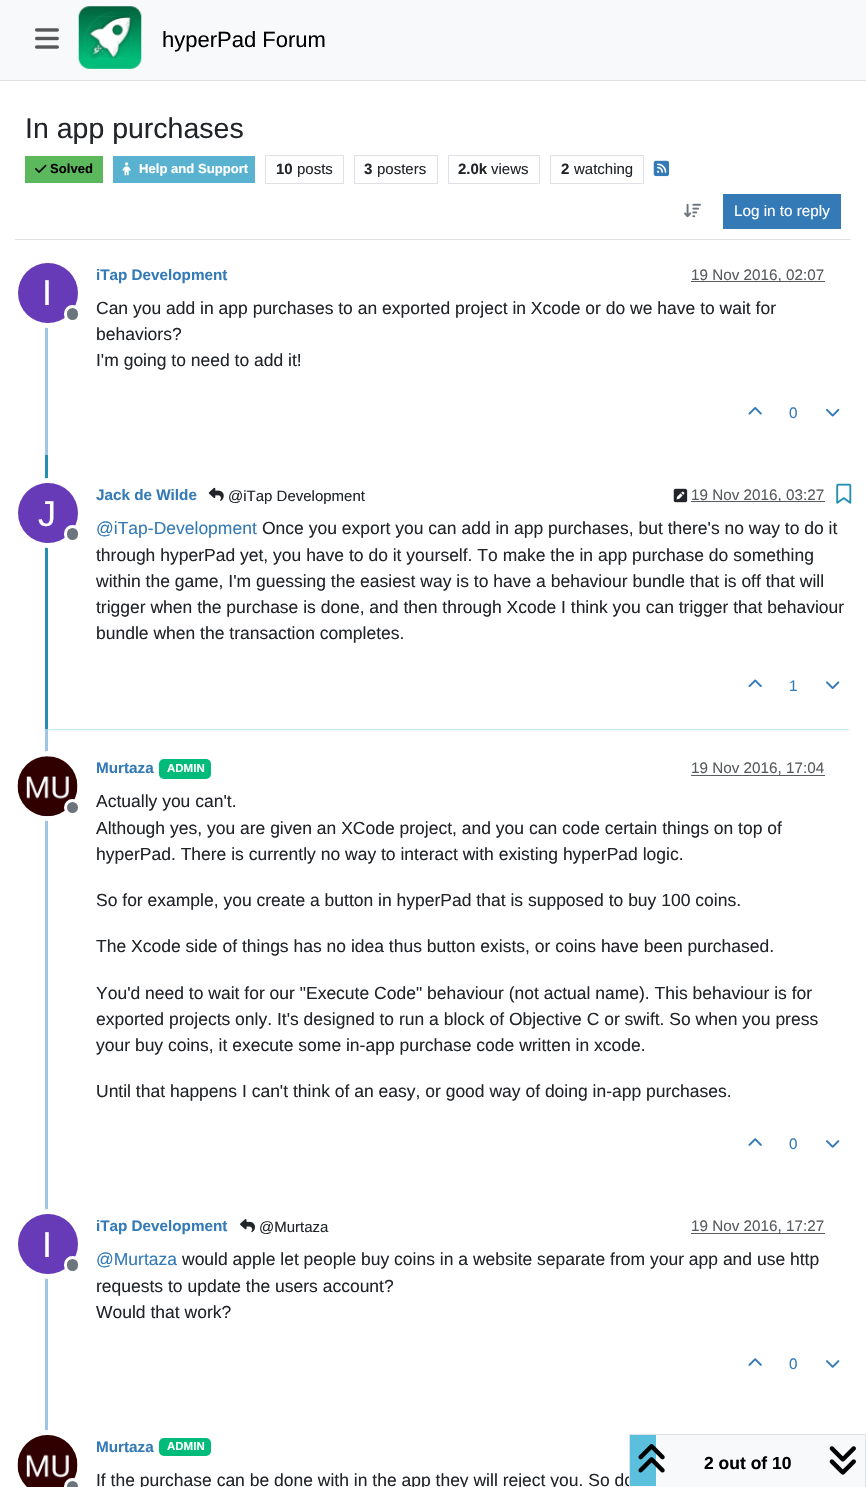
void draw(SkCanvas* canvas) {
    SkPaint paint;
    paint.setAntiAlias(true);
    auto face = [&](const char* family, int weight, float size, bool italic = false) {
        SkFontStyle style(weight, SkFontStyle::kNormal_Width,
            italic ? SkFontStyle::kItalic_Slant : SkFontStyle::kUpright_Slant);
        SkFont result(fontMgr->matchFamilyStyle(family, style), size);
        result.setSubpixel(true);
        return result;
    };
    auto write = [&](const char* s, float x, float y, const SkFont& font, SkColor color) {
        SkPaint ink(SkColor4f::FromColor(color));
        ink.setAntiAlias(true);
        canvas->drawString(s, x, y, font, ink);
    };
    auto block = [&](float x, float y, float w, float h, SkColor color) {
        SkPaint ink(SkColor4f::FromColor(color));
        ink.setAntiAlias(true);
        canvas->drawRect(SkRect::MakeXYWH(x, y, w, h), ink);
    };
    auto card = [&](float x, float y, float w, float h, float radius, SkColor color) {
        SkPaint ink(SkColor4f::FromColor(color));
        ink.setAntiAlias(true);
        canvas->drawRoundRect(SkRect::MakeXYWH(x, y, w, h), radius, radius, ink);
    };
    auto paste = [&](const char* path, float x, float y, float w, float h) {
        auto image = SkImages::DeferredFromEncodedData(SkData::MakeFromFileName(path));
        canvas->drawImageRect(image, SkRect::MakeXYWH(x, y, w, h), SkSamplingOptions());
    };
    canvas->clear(SK_ColorWHITE);
    block(0, 0, 866, 80, SkColorSetRGB(248, 249, 250));
    block(0, 80, 866, 1, SkColorSetRGB(222, 226, 230));
    paste("pic1.png", 35, 28, 24, 21);
    paste("pic2.png", 78, 6, 64, 63);
    auto kFont1 = face("Liberation Sans", 400, 22);
    write("hyperPad Forum", 162, 47, kFont1, SK_ColorBLACK);
    block(15, 239, 836, 1, SkColorSetRGB(222, 226, 230));
    auto kFont2 = face("Liberation Sans", 400, 28.5f);
    write("In app purchases", 25, 138, kFont2, SkColorSetRGB(33, 37, 41));
    block(25, 156, 78, 27, SkColorSetRGB(92, 184, 92));
    paste("pic3.png", 35, 164, 12, 9);
    auto kFont3 = face("Liberation Sans", 700, 13.1f);
    write("Solved", 50, 173, kFont3, SK_ColorBLACK);
    block(113, 156, 142, 27, SkColorSetRGB(89, 179, 208));
    paste("pic4.png", 122, 162, 9, 14);
    write("Help and Support", 139, 173, kFont3, SK_ColorWHITE);
    paint.setStyle(SkPaint::kStroke_Style);
    paint.setStrokeWidth(1);
    paint.setColor(SkColorSetRGB(222, 226, 230));
    canvas->drawRect(SkRect::MakeXYWH(265.5f, 155.5f, 78, 28), paint);
    auto kFont4 = face("Liberation Sans", 700, 15);
    write("10", 276, 174, kFont4, SkColorSetRGB(33, 37, 41));
    auto kFont5 = face("Liberation Sans", 400, 15);
    write("posts", 297, 174, kFont5, SkColorSetRGB(33, 37, 41));
    canvas->drawRect(SkRect::MakeXYWH(354.5f, 155.5f, 83, 28), paint);
    write("3", 364, 174, kFont4, SkColorSetRGB(33, 37, 41));
    write("posters", 377, 174, kFont5, SkColorSetRGB(33, 37, 41));
    canvas->drawRect(SkRect::MakeXYWH(448.5f, 155.5f, 91, 28), paint);
    write("2.0k", 458, 174, kFont4, SkColorSetRGB(33, 37, 41));
    write("views", 491, 174, kFont5, SkColorSetRGB(33, 37, 41));
    canvas->drawRect(SkRect::MakeXYWH(550.5f, 155.5f, 93, 28), paint);
    write("2", 561, 174, kFont4, SkColorSetRGB(33, 37, 41));
    write("watching", 574, 174, kFont5, SkColorSetRGB(33, 37, 41));
    paste("pic5.png", 653, 160, 17, 17);
    paste("pic6.png", 684, 203, 17, 15);
    block(723, 194, 118, 35, SkColorSetRGB(51, 122, 183));
    auto kFont6 = face("Liberation Sans", 400, 15.25f);
    write("Log in to reply", 734, 216, kFont6, SK_ColorWHITE);
    block(45, 260, 3, 195, SkColorSetRGB(160, 196, 228));
    auto kFont7 = face("Liberation Sans", 700, 15.25f);
    write("iTap Development", 96, 280, kFont7, SkColorSetRGB(51, 122, 183));
    block(691, 281, 134, 1, SkColorSetRGB(89, 92, 95));
    write("19 Nov 2016, 02:07", 691, 280, kFont6, SkColorSetRGB(88, 91, 94));
    paint.setStrokeWidth(5);
    paint.setColor(SK_ColorWHITE);
    canvas->drawCircle(48, 293, 32.5f, paint);
    paint.setStyle(SkPaint::kFill_Style);
    paint.setColor(SkColorSetRGB(103, 58, 183));
    canvas->drawCircle(48, 293, 30, paint);
    auto kFont8 = face("Liberation Sans", 400, 36);
    write("I", 42, 305, kFont8, SK_ColorWHITE);
    paint.setColor(SkColorSetRGB(108, 117, 125));
    canvas->drawRoundRect(SkRect::MakeXYWH(65.5f, 306.5f, 14, 15), 7, 7, paint);
    paint.setStyle(SkPaint::kStroke_Style);
    paint.setStrokeWidth(3);
    paint.setColor(SK_ColorWHITE);
    canvas->drawRoundRect(SkRect::MakeXYWH(65.5f, 306.5f, 14, 15), 7, 7, paint);
    auto kFont9 = face("Liberation Sans", 400, 17.5f);
    write("Can you add in app purchases to an exported project in Xcode or do we have to wait for", 96, 314, kFont9, SkColorSetRGB(33, 37, 41));
    write("behaviors?", 96, 340, kFont9, SkColorSetRGB(33, 37, 41));
    write("I'm going to need to add it!", 96, 366, kFont9, SkColorSetRGB(33, 37, 41));
    paste("pic7.png", 748, 407, 14, 8);
    write("0", 789, 418, kFont6, SkColorSetRGB(51, 122, 183));
    paste("pic8.png", 826, 408, 14, 9);
    canvas->save();
    canvas->clipPath(SkPathBuilder(SkPathFillType::kEvenOdd).moveTo(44, 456).lineTo(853, 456).lineTo(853, 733).lineTo(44, 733).close().moveTo(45, 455).lineTo(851, 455).lineTo(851, 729).lineTo(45, 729).close().detach(), true);
    paint.setStyle(SkPaint::kFill_Style);
    paint.setColor(SkColorSetRGB(91, 192, 222));
    paint.setMaskFilter(SkMaskFilter::MakeBlur(kNormal_SkBlurStyle, 1));
    canvas->drawRect(SkRect::MakeXYWH(48, 460, 801, 269), paint);
    paint.setMaskFilter(nullptr);
    canvas->restore();
    block(45, 455, 3, 274, SkColorSetRGB(35, 144, 176));
    write("Jack de Wilde", 96, 500, kFont7, SkColorSetRGB(51, 122, 183));
    paste("pic9.png", 208, 487, 16, 14);
    write("@iTap Development", 228, 501, kFont5, SkColorSetRGB(33, 37, 41));
    paste("pic10.png", 673, 488, 15, 15);
    block(691, 501, 134, 1, SkColorSetRGB(89, 92, 95));
    write("19 Nov 2016, 03:27", 691, 500, kFont6, SkColorSetRGB(88, 91, 94));
    paste("pic11.png", 836, 483, 16, 21);
    paint.setStyle(SkPaint::kStroke_Style);
    paint.setStrokeWidth(5);
    paint.setColor(SK_ColorWHITE);
    canvas->drawCircle(48, 513, 32.5f, paint);
    paint.setStyle(SkPaint::kFill_Style);
    paint.setColor(SkColorSetRGB(103, 58, 183));
    canvas->drawCircle(48, 513, 30, paint);
    write("J", 38, 526, kFont8, SK_ColorWHITE);
    paint.setColor(SkColorSetRGB(108, 117, 125));
    canvas->drawRoundRect(SkRect::MakeXYWH(65.5f, 526.5f, 14, 15), 7, 7, paint);
    paint.setStyle(SkPaint::kStroke_Style);
    paint.setStrokeWidth(3);
    paint.setColor(SK_ColorWHITE);
    canvas->drawRoundRect(SkRect::MakeXYWH(65.5f, 526.5f, 14, 15), 7, 7, paint);
    write("@iTap-Development", 96, 534, kFont9, SkColorSetRGB(51, 122, 183));
    write("Once you export you can add in app purchases, but there's no way to do it", 262, 534, kFont9, SkColorSetRGB(33, 37, 41));
    write("through hyperPad yet, you have to do it yourself. To make the in app purchase do something", 96, 561, kFont9, SkColorSetRGB(33, 37, 41));
    write("within the game, I'm guessing the easiest way is to have a behaviour bundle that is off that will", 96, 587, kFont9, SkColorSetRGB(33, 37, 41));
    write("trigger when the purchase is done, and then through Xcode I think you can trigger that behaviour", 96, 613, kFont9, SkColorSetRGB(33, 37, 41));
    write("bundle when the transaction completes.", 96, 639, kFont9, SkColorSetRGB(33, 37, 41));
    paste("pic12.png", 748, 679, 14, 9);
    write("1", 789, 691, kFont6, SkColorSetRGB(51, 122, 183));
    paste("pic13.png", 826, 681, 14, 8);
    block(45, 729, 3, 707, SkColorSetRGB(160, 196, 228));
    paint.setStrokeWidth(5);
    canvas->drawCircle(48, 786, 32.5f, paint);
    paste("pic14.png", 17, 756, 61, 61);
    paint.setStyle(SkPaint::kFill_Style);
    paint.setColor(SkColorSetRGB(108, 117, 125));
    canvas->drawCircle(72.5f, 807.5f, 7, paint);
    paint.setStyle(SkPaint::kStroke_Style);
    paint.setStrokeWidth(3);
    paint.setColor(SK_ColorWHITE);
    canvas->drawCircle(72.5f, 807.5f, 7, paint);
    write("Murtaza", 96, 773, kFont7, SkColorSetRGB(51, 122, 183));
    card(159, 759, 52, 20, 5, SkColorSetRGB(0, 187, 122));
    auto kFont10 = face("Liberation Sans", 700, 11.5f);
    write("ADMIN", 167, 772, kFont10, SK_ColorWHITE);
    write("19 Nov 2016, 17:04", 691, 773, kFont6, SkColorSetRGB(88, 91, 94));
    block(691, 775, 134, 1, SkColorSetRGB(89, 92, 95));
    write("Actually you can't.", 96, 807, kFont9, SkColorSetRGB(33, 37, 41));
    write("Although yes, you are given an XCode project, and you can code certain things on top of", 96, 834, kFont9, SkColorSetRGB(33, 37, 41));
    write("hyperPad. There is currently no way to interact with existing hyperPad logic.", 96, 860, kFont9, SkColorSetRGB(33, 37, 41));
    write("So for example, you create a button in hyperPad that is supposed to buy 100 coins.", 96, 906, kFont9, SkColorSetRGB(33, 37, 41));
    write("The Xcode side of things has no idea thus button exists, or coins have been purchased.", 96, 952, kFont9, SkColorSetRGB(33, 37, 41));
    write("You'd need to wait for our \"Execute Code\" behaviour (not actual name). This behaviour is for", 96, 999, kFont9, SkColorSetRGB(33, 37, 41));
    write("exported projects only. It's designed to run a block of Objective C or swift. So when you press", 96, 1025, kFont9, SkColorSetRGB(33, 37, 41));
    write("your buy coins, it execute some in-app purchase code written in xcode.", 96, 1051, kFont9, SkColorSetRGB(33, 37, 41));
    write("Until that happens I can't think of an easy, or good way of doing in-app purchases.", 96, 1097, kFont9, SkColorSetRGB(33, 37, 41));
    paste("pic15.png", 748, 1138, 14, 8);
    write("0", 789, 1149, kFont6, SkColorSetRGB(51, 122, 183));
    paste("pic16.png", 826, 1140, 14, 8);
    write("iTap Development", 96, 1231, kFont7, SkColorSetRGB(51, 122, 183));
    paste("pic17.png", 240, 1219, 15, 14);
    write("@Murtaza", 259, 1232, kFont5, SkColorSetRGB(33, 37, 41));
    write("19 Nov 2016, 17:27", 691, 1231, kFont6, SkColorSetRGB(88, 91, 94));
    block(691, 1233, 134, 1, SkColorSetRGB(89, 92, 95));
    paint.setStrokeWidth(5);
    canvas->drawCircle(48, 1244, 32.5f, paint);
    paint.setStyle(SkPaint::kFill_Style);
    paint.setColor(SkColorSetRGB(103, 58, 183));
    canvas->drawCircle(48, 1244, 30, paint);
    write("I", 42, 1257, kFont8, SK_ColorWHITE);
    paint.setColor(SkColorSetRGB(108, 117, 125));
    canvas->drawRoundRect(SkRect::MakeXYWH(65.5f, 1257.5f, 14, 15), 7, 7, paint);
    paint.setStyle(SkPaint::kStroke_Style);
    paint.setStrokeWidth(3);
    paint.setColor(SK_ColorWHITE);
    canvas->drawRoundRect(SkRect::MakeXYWH(65.5f, 1257.5f, 14, 15), 7, 7, paint);
    write("@Murtaza", 96, 1265, kFont9, SkColorSetRGB(51, 122, 183));
    write("would apple let people buy coins in a website separate from your app and use http", 182, 1265, kFont9, SkColorSetRGB(33, 37, 41));
    write("requests to update the users account?", 96, 1292, kFont9, SkColorSetRGB(33, 37, 41));
    write("Would that work?", 96, 1318, kFont9, SkColorSetRGB(33, 37, 41));
    paste("pic15.png", 748, 1358, 14, 8);
    write("0", 789, 1369, kFont6, SkColorSetRGB(51, 122, 183));
    paste("pic16.png", 826, 1360, 14, 8);
    paint.setStrokeWidth(5);
    canvas->drawCircle(48, 1465, 32.5f, paint);
    paste("pic18.png", 17, 1435, 61, 52);
    paint.setStyle(SkPaint::kFill_Style);
    paint.setColor(SkColorSetRGB(108, 117, 125));
    canvas->drawCircle(72.5f, 1486.5f, 7, paint);
    paint.setStyle(SkPaint::kStroke_Style);
    paint.setStrokeWidth(3);
    paint.setColor(SK_ColorWHITE);
    canvas->drawCircle(72.5f, 1486.5f, 7, paint);
    write("Murtaza", 96, 1452, kFont7, SkColorSetRGB(51, 122, 183));
    card(159, 1438, 52, 18, 5, SkColorSetRGB(0, 187, 122));
    write("ADMIN", 167, 1450, kFont10, SK_ColorWHITE);
    write("If the purchase can be done with in the app they will reject you. So do", 96, 1486, kFont9, SkColorSetRGB(33, 37, 41));
    paint.setStyle(SkPaint::kFill_Style);
    paint.setColor(SkColorSetRGB(248, 249, 250));
    canvas->drawRect(SkRect::MakeXYWH(629.5f, 1434.5f, 236, 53), paint);
    paint.setStyle(SkPaint::kStroke_Style);
    paint.setStrokeWidth(1);
    paint.setColor(SkColorSetRGB(222, 226, 230));
    canvas->drawRect(SkRect::MakeXYWH(629.5f, 1434.5f, 236, 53), paint);
    block(630, 1435, 26, 51, SkColorSetRGB(91, 192, 222));
    paste("pic19.png", 638, 1444, 27, 29);
    auto kFont11 = face("Liberation Sans", 700, 17.5f);
    write("2 out of 10", 704, 1469, kFont11, SK_ColorBLACK);
    paste("pic20.png", 829, 1446, 27, 29);
}
